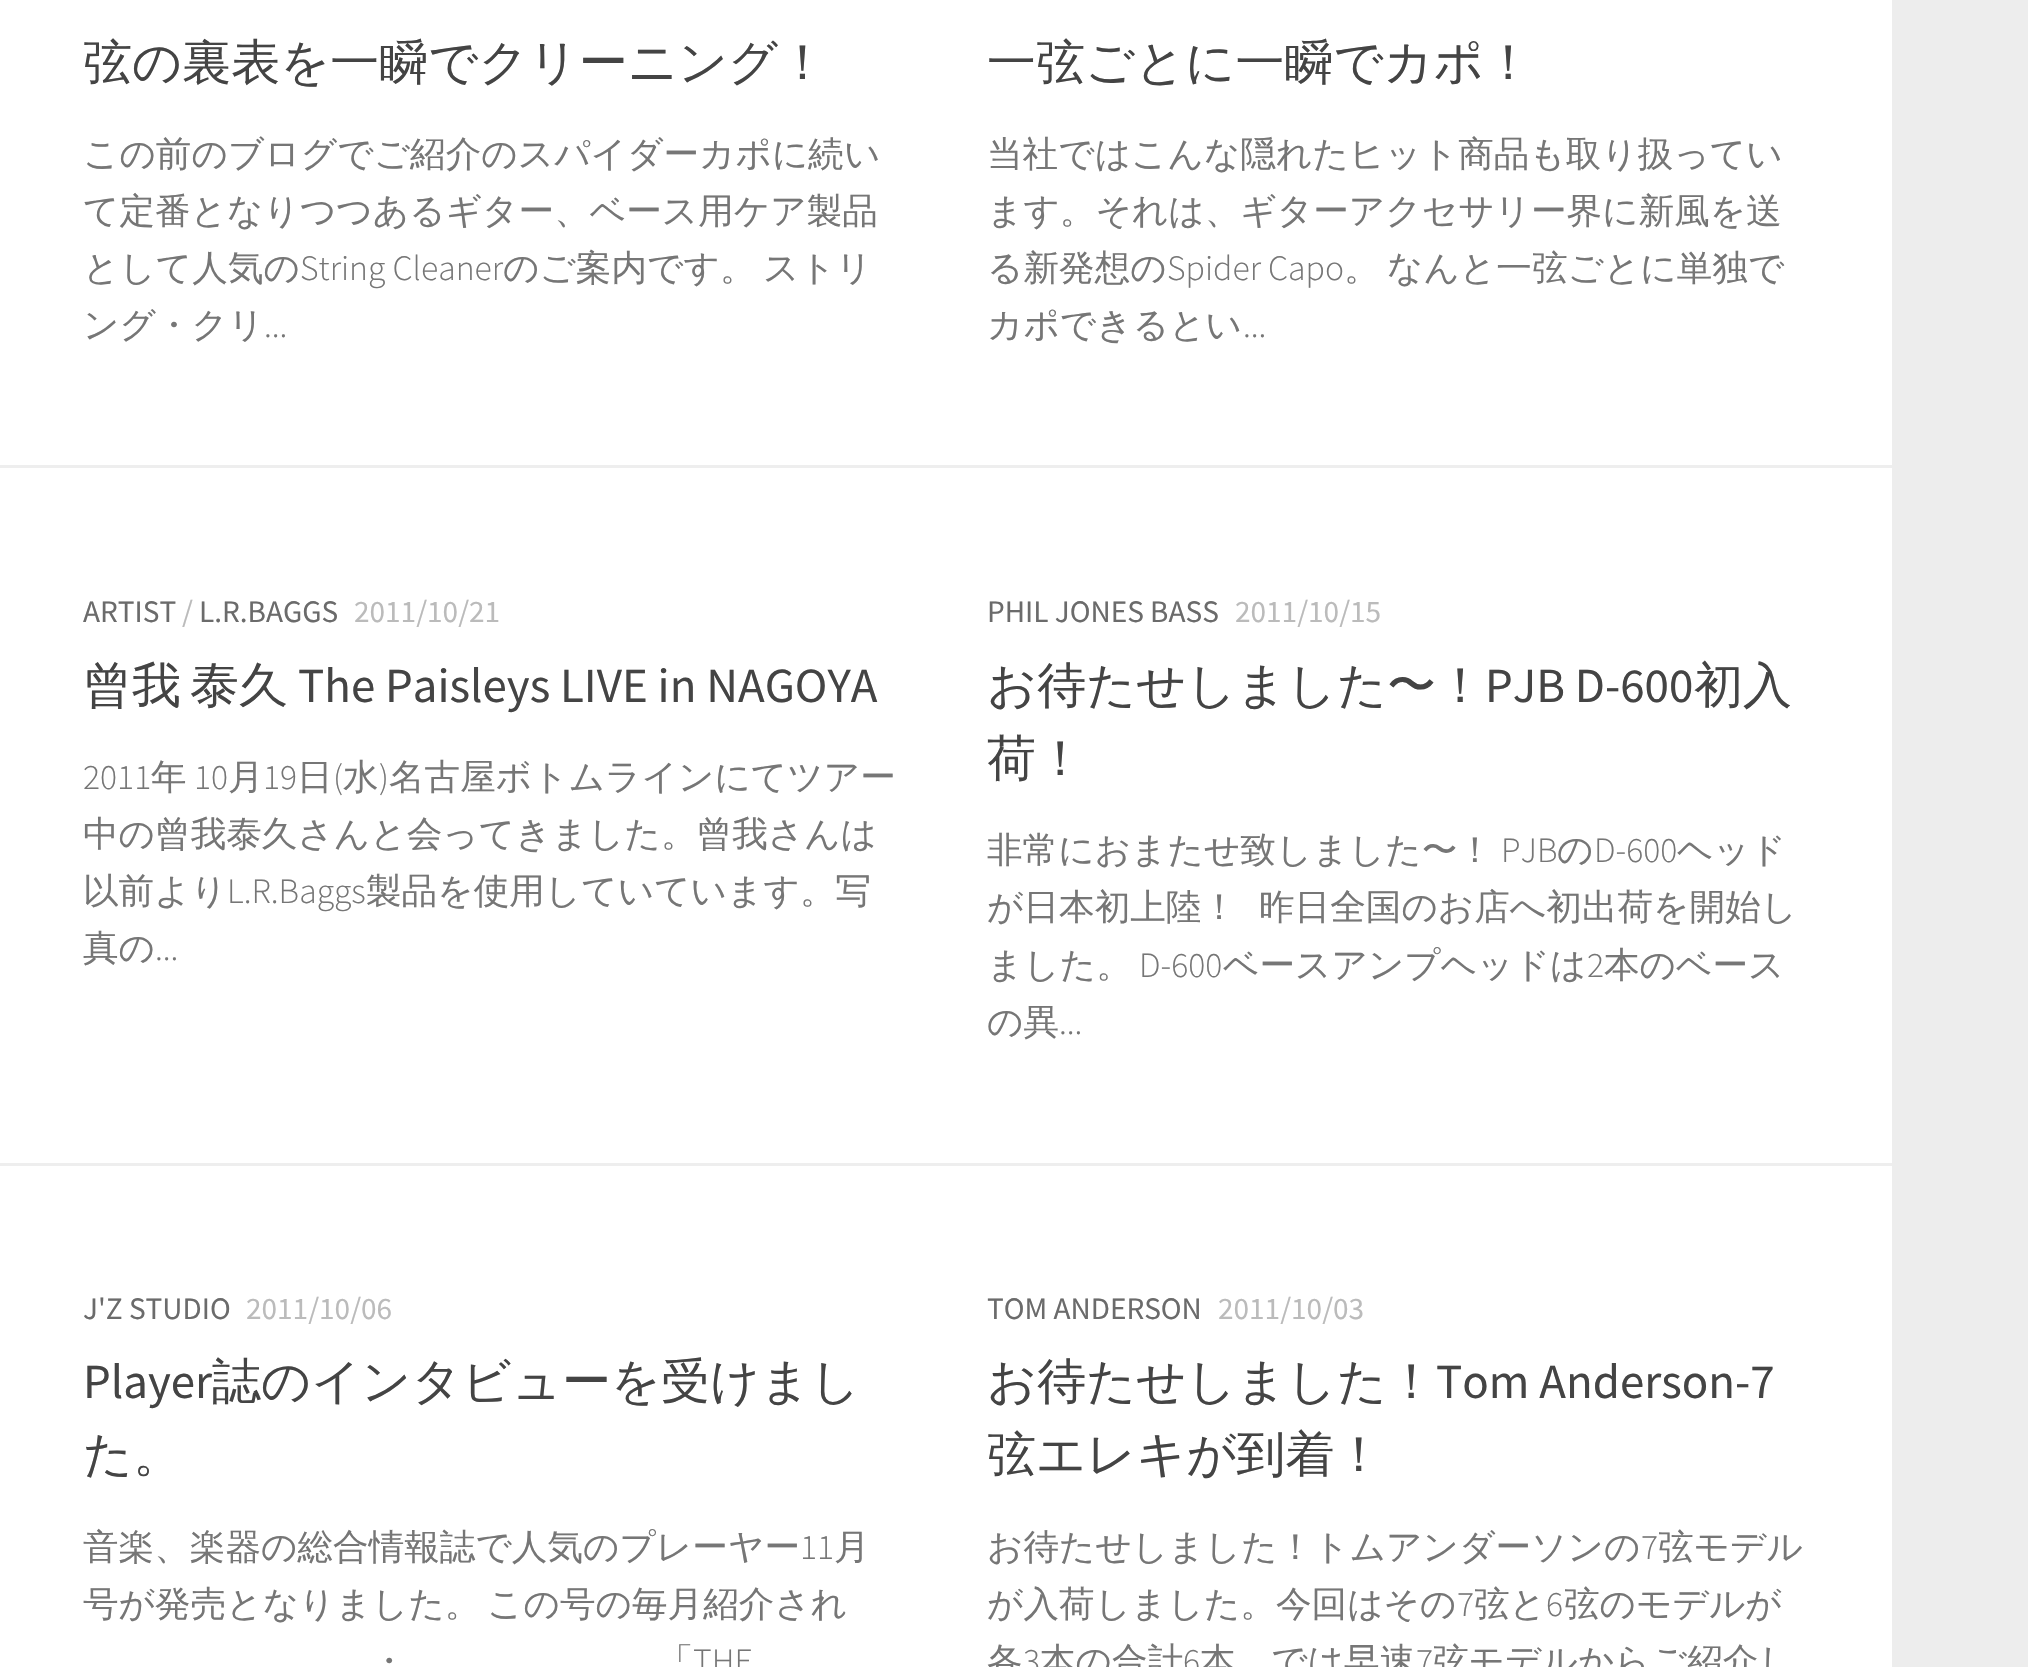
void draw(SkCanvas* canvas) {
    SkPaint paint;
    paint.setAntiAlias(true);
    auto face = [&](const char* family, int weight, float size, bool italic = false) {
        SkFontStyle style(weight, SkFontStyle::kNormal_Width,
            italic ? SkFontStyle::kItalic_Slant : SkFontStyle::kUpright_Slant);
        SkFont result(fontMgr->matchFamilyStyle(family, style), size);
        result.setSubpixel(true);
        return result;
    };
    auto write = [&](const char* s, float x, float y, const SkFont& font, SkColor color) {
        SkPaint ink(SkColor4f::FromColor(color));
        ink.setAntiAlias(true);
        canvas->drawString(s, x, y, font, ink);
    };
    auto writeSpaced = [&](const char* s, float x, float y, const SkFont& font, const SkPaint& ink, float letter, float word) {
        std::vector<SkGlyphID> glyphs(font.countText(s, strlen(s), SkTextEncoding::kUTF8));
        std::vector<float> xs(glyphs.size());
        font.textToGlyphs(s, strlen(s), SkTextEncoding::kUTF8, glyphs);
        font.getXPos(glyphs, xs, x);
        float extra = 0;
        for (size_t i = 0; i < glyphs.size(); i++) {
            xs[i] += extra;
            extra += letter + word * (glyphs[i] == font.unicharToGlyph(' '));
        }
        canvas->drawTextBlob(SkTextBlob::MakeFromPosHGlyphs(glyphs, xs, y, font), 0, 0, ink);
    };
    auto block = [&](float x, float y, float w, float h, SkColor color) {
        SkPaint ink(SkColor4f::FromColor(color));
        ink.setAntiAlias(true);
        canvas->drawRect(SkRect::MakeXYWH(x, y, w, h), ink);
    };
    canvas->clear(SK_ColorWHITE);
    block(0, 465, 1892, 3, SkColorSetRGB(238, 238, 238));
    auto kFont1 = face("WenQuanYi Zen Hei", 500, 49);
    write("弦の裏表を一瞬でクリーニング！", 83, 79, kFont1, SkColorSetRGB(68, 68, 68));
    auto kFont2 = face("WenQuanYi Zen Hei", 500, 35.6f);
    write("この前のブログでご紹介のスパイダーカポに続い", 83, 166, kFont2, SkColorSetRGB(118, 118, 118));
    write("て定番となりつつあるギター、ベース用ケア製品", 83, 223, kFont2, SkColorSetRGB(118, 118, 118));
    write("として人気の", 83, 280, kFont2, SkColorSetRGB(118, 118, 118));
    auto kFont3 = face("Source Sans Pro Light", 300, 35.6f);
    write("String Cleaner", 300, 280, kFont3, SkColorSetRGB(118, 118, 118));
    write("のご案内です。", 503, 280, kFont2, SkColorSetRGB(118, 118, 118));
    write("ストリ", 763, 280, kFont2, SkColorSetRGB(118, 118, 118));
    write("ング・クリ", 83, 337, kFont2, SkColorSetRGB(118, 118, 118));
    write("...", 264, 337, kFont3, SkColorSetRGB(118, 118, 118));
    write("一弦ごとに一瞬でカポ！", 987, 79, kFont1, SkColorSetRGB(68, 68, 68));
    write("当社ではこんな隠れたヒット商品も取り扱ってい", 987, 166, kFont2, SkColorSetRGB(118, 118, 118));
    write("ます。それは、ギターアクセサリー界に新風を送", 987, 223, kFont2, SkColorSetRGB(118, 118, 118));
    write("る新発想の", 987, 280, kFont2, SkColorSetRGB(118, 118, 118));
    write("Spider Capo", 1167, 280, kFont3, SkColorSetRGB(118, 118, 118));
    write("。", 1344, 280, kFont2, SkColorSetRGB(118, 118, 118));
    write("なんと一弦ごとに単独で", 1387, 280, kFont2, SkColorSetRGB(118, 118, 118));
    write("カポできるとい", 987, 337, kFont2, SkColorSetRGB(118, 118, 118));
    write("...", 1243, 337, kFont3, SkColorSetRGB(118, 118, 118));
    block(0, 1163, 1892, 3, SkColorSetRGB(238, 238, 238));
    auto kFont4 = face("Source Sans Pro", 400, 31.25f);
    write("ARTIST", 83, 622, kFont4, SkColorSetRGB(107, 107, 107));
    write("/", 182, 622, kFont4, SkColorSetRGB(187, 187, 187));
    write("L.R.BAGGS", 199, 622, kFont4, SkColorSetRGB(107, 107, 107));
    write("2011/10/21", 354, 622, kFont4, SkColorSetRGB(187, 187, 187));
    write("曾我", 83, 702, kFont1, SkColorSetRGB(68, 68, 68));
    write("泰久", 190, 702, kFont1, SkColorSetRGB(68, 68, 68));
    auto kFont5 = face("Source Sans Pro", 400, 49);
    write("The Paisleys LIVE in NAGOYA", 298, 702, kFont5, SkColorSetRGB(68, 68, 68));
    write("2011", 83, 789, kFont3, SkColorSetRGB(118, 118, 118));
    write("年", 151, 789, kFont2, SkColorSetRGB(118, 118, 118));
    write("10", 194, 789, kFont3, SkColorSetRGB(118, 118, 118));
    write("月", 228, 789, kFont2, SkColorSetRGB(118, 118, 118));
    write("19", 263, 789, kFont3, SkColorSetRGB(118, 118, 118));
    write("日", 297, 789, kFont2, SkColorSetRGB(118, 118, 118));
    write("(", 333, 789, kFont3, SkColorSetRGB(118, 118, 118));
    write("水", 343, 789, kFont2, SkColorSetRGB(118, 118, 118));
    write(")", 379, 789, kFont3, SkColorSetRGB(118, 118, 118));
    write("名古屋ボトムラインにてツアー", 389, 789, kFont2, SkColorSetRGB(118, 118, 118));
    write("中の曾我泰久さんと会ってきました。曾我さんは", 83, 846, kFont2, SkColorSetRGB(118, 118, 118));
    write("以前より", 83, 903, kFont2, SkColorSetRGB(118, 118, 118));
    write("L.R.Baggs", 227, 903, kFont3, SkColorSetRGB(118, 118, 118));
    write("製品を使用していています。写", 366, 903, kFont2, SkColorSetRGB(118, 118, 118));
    write("真の", 83, 960, kFont2, SkColorSetRGB(118, 118, 118));
    write("...", 155, 960, kFont3, SkColorSetRGB(118, 118, 118));
    write("PHIL JONES BASS", 987, 622, kFont4, SkColorSetRGB(107, 107, 107));
    write("2011/10/15", 1235, 622, kFont4, SkColorSetRGB(187, 187, 187));
    write("お待たせしました〜！", 987, 702, kFont1, SkColorSetRGB(68, 68, 68));
    write("PJB D-600", 1485, 702, kFont5, SkColorSetRGB(68, 68, 68));
    write("初入", 1694, 702, kFont1, SkColorSetRGB(68, 68, 68));
    write("荷！", 987, 775, kFont1, SkColorSetRGB(68, 68, 68));
    write("非常におまたせ致しました〜！", 987, 862, kFont2, SkColorSetRGB(118, 118, 118));
    write("PJB", 1501, 862, kFont3, SkColorSetRGB(118, 118, 118));
    write("の", 1557, 862, kFont2, SkColorSetRGB(118, 118, 118));
    write("D-600", 1594, 862, kFont3, SkColorSetRGB(118, 118, 118));
    write("ヘッド", 1677, 862, kFont2, SkColorSetRGB(118, 118, 118));
    write("が日本初上陸！", 987, 919, kFont2, SkColorSetRGB(118, 118, 118));
    write("昨日全国のお店へ初出荷を開始し", 1259, 919, kFont2, SkColorSetRGB(118, 118, 118));
    write("ました。", 987, 977, kFont2, SkColorSetRGB(118, 118, 118));
    write("D-600", 1139, 977, kFont3, SkColorSetRGB(118, 118, 118));
    write("ベースアンプヘッドは", 1223, 977, kFont2, SkColorSetRGB(118, 118, 118));
    write("2", 1587, 977, kFont3, SkColorSetRGB(118, 118, 118));
    write("本のベース", 1604, 977, kFont2, SkColorSetRGB(118, 118, 118));
    write("の異", 987, 1034, kFont2, SkColorSetRGB(118, 118, 118));
    write("...", 1059, 1034, kFont3, SkColorSetRGB(118, 118, 118));
    write("J'Z STUDIO", 83, 1319, kFont4, SkColorSetRGB(107, 107, 107));
    write("2011/10/06", 246, 1319, kFont4, SkColorSetRGB(187, 187, 187));
    write("Player", 83, 1398, kFont5, SkColorSetRGB(68, 68, 68));
    write("誌のインタビューを受けまし", 212, 1398, kFont1, SkColorSetRGB(68, 68, 68));
    write("た。", 83, 1471, kFont1, SkColorSetRGB(68, 68, 68));
    write("音楽、楽器の総合情報誌で人気のプレーヤー", 83, 1559, kFont2, SkColorSetRGB(118, 118, 118));
    write("11", 800, 1559, kFont3, SkColorSetRGB(118, 118, 118));
    write("月", 834, 1559, kFont2, SkColorSetRGB(118, 118, 118));
    paint.setColor(SkColorSetRGB(118, 118, 118));
    writeSpaced("号が発売となりました。 この号の毎月紹介され", 83, 1616, kFont2, paint, 0, -4);
    write("・", 371, 1673, kFont2, SkColorSetRGB(118, 118, 118));
    write("「", 658, 1673, kFont2, SkColorSetRGB(118, 118, 118));
    write("THE", 693, 1673, kFont3, SkColorSetRGB(118, 118, 118));
    write("TOM ANDERSON", 987, 1319, kFont4, SkColorSetRGB(107, 107, 107));
    write("2011/10/03", 1218, 1319, kFont4, SkColorSetRGB(187, 187, 187));
    write("お待たせしました！", 987, 1398, kFont1, SkColorSetRGB(68, 68, 68));
    write("Tom Anderson-7", 1436, 1398, kFont5, SkColorSetRGB(68, 68, 68));
    write("弦エレキが到着！", 987, 1471, kFont1, SkColorSetRGB(68, 68, 68));
    write("お待たせしました！トムアンダーソンの", 987, 1559, kFont2, SkColorSetRGB(118, 118, 118));
    write("7", 1641, 1559, kFont3, SkColorSetRGB(118, 118, 118));
    write("弦モデル", 1658, 1559, kFont2, SkColorSetRGB(118, 118, 118));
    write("が入荷しました。今回はその", 987, 1616, kFont2, SkColorSetRGB(118, 118, 118));
    write("7", 1457, 1616, kFont3, SkColorSetRGB(118, 118, 118));
    write("弦と", 1474, 1616, kFont2, SkColorSetRGB(118, 118, 118));
    write("6", 1546, 1616, kFont3, SkColorSetRGB(118, 118, 118));
    write("弦のモデルが", 1564, 1616, kFont2, SkColorSetRGB(118, 118, 118));
    write("各", 987, 1673, kFont2, SkColorSetRGB(118, 118, 118));
    write("3", 1023, 1673, kFont3, SkColorSetRGB(118, 118, 118));
    write("本の合計", 1040, 1673, kFont2, SkColorSetRGB(118, 118, 118));
    write("6", 1183, 1673, kFont3, SkColorSetRGB(118, 118, 118));
    write("本。では早速", 1200, 1673, kFont2, SkColorSetRGB(118, 118, 118));
    write("7", 1416, 1673, kFont3, SkColorSetRGB(118, 118, 118));
    write("弦モデルからご紹介し", 1433, 1673, kFont2, SkColorSetRGB(118, 118, 118));
    block(1892, 0, 136, 1667, SkColorSetRGB(237, 237, 237));
}
